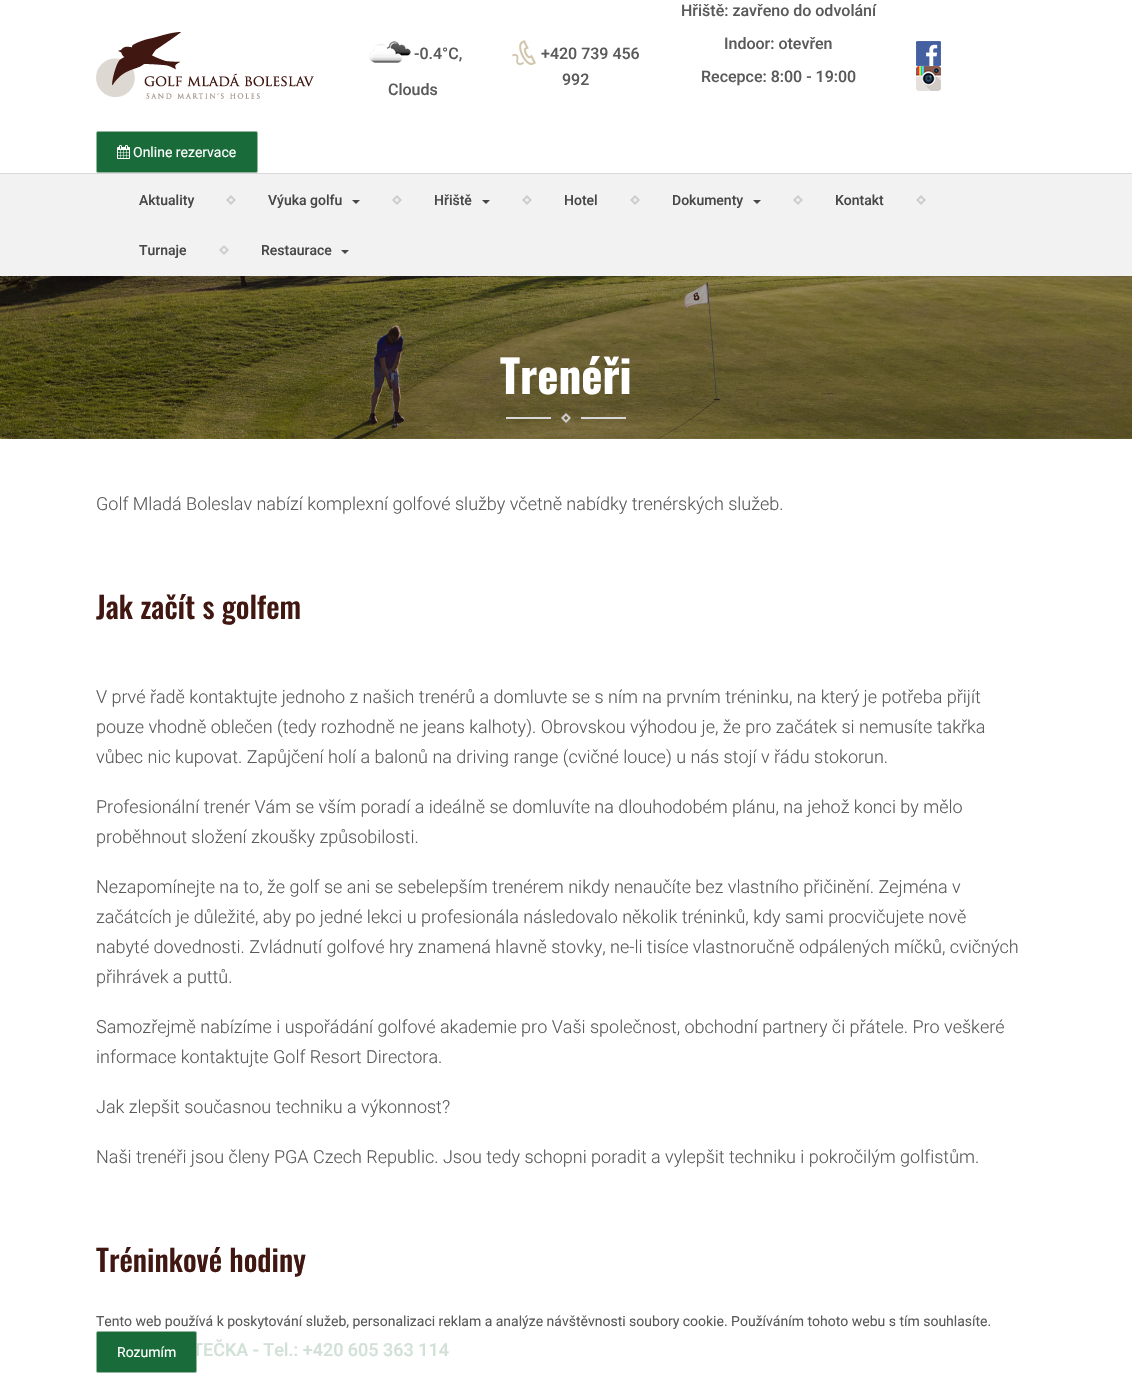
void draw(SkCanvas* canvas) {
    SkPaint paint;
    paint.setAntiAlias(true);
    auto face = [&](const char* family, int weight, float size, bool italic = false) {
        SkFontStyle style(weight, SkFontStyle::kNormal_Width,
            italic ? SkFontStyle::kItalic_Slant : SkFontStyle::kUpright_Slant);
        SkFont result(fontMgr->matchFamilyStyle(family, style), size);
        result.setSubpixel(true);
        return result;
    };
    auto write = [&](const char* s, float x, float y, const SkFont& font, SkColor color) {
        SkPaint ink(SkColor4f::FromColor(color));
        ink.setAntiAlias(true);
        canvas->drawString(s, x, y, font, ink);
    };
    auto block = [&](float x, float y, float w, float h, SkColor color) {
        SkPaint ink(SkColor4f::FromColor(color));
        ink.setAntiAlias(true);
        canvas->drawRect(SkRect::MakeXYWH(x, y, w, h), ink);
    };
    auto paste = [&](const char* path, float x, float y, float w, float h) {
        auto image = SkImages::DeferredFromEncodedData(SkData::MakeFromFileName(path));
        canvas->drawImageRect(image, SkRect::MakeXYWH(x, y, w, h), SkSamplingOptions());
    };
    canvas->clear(SK_ColorWHITE);
    paste("pic1.png", 96, 32, 218, 67);
    paste("pic2.png", 369, 41, 42, 22);
    auto kFont1 = face("Roboto", 500, 16);
    write("-0.4°C,", 414, 59, kFont1, SkColorSetRGB(90, 90, 90));
    write("Clouds", 388, 95, kFont1, SkColorSetRGB(90, 90, 90));
    paste("pic3.png", 512, 40, 24, 25);
    write("+420 739 456", 541, 59, kFont1, SkColorSetRGB(90, 90, 90));
    write("992", 562, 85, kFont1, SkColorSetRGB(90, 90, 90));
    write("Hřiště: zavřeno do odvolání", 681, 16, kFont1, SkColorSetRGB(90, 90, 90));
    write("Indoor: otevřen", 724, 49, kFont1, SkColorSetRGB(90, 90, 90));
    write("Recepce: 8:00 - 19:00", 701, 82, kFont1, SkColorSetRGB(90, 90, 90));
    paste("pic4.png", 916, 41, 25, 25);
    paste("pic5.png", 916, 66, 25, 25);
    paint.setColor(SkColorSetRGB(26, 107, 58));
    canvas->drawRoundRect(SkRect::MakeXYWH(96.5f, 131.5f, 161, 41), 1.5f, 1.5f, paint);
    paint.setStyle(SkPaint::kStroke_Style);
    paint.setStrokeWidth(1);
    paint.setColor(SkColorSetRGB(145, 181, 159));
    canvas->drawRoundRect(SkRect::MakeXYWH(96.5f, 131.5f, 161, 41), 1.5f, 1.5f, paint);
    paste("pic6.png", 117, 145, 13, 14);
    auto kFont2 = face("Roboto", 400, 14);
    write("Online rezervace", 133, 157, kFont2, SK_ColorWHITE);
    block(0, 174, 1132, 102, SkColorSetRGB(242, 242, 242));
    block(0, 173, 1132, 1, SkColorSetRGB(216, 216, 216));
    auto kFont3 = face("Roboto", 500, 14);
    write("Aktuality", 139, 205, kFont3, SkColorSetRGB(71, 71, 71));
    paste("pic7.png", 226, 195, 10, 10);
    write("Výuka golfu", 268, 205, kFont3, SkColorSetRGB(71, 71, 71));
    paint.setStyle(SkPaint::kFill_Style);
    paint.setColor(SkColorSetRGB(71, 71, 71));
    canvas->drawPath(SkPathBuilder().moveTo(352, 200).lineTo(360, 200).lineTo(356, 204).close().detach(), paint);
    paste("pic7.png", 392, 195, 10, 10);
    write("Hřiště", 434, 205, kFont3, SkColorSetRGB(71, 71, 71));
    canvas->drawPath(SkPathBuilder().moveTo(482, 200).lineTo(490, 200).lineTo(486, 204).close().detach(), paint);
    paste("pic7.png", 522, 195, 10, 10);
    write("Hotel", 564, 205, kFont3, SkColorSetRGB(71, 71, 71));
    paste("pic7.png", 630, 195, 10, 10);
    write("Dokumenty", 672, 205, kFont3, SkColorSetRGB(71, 71, 71));
    canvas->drawPath(SkPathBuilder().moveTo(753, 200).lineTo(761, 200).lineTo(757, 204).close().detach(), paint);
    paste("pic7.png", 793, 195, 10, 10);
    write("Kontakt", 835, 205, kFont3, SkColorSetRGB(71, 71, 71));
    paste("pic7.png", 916, 195, 10, 10);
    write("Turnaje", 139, 255, kFont3, SkColorSetRGB(71, 71, 71));
    paste("pic7.png", 219, 245, 10, 10);
    write("Restaurace", 261, 255, kFont3, SkColorSetRGB(71, 71, 71));
    canvas->drawPath(SkPathBuilder().moveTo(341, 250).lineTo(349, 250).lineTo(345, 254).close().detach(), paint);
    paste("pic8.png", 0, 276, 1132, 163);
    auto kFont4 = face("Oswald", 700, 45);
    write("Trenéři", 500, 394, kFont4, SK_ColorWHITE);
    paste("pic9.png", 506, 413, 120, 10);
    auto kFont5 = face("Roboto", 300, 18);
    write("Golf Mladá Boleslav nabízí komplexní golfové služby včetně nabídky trenérských služeb.", 96, 510, kFont5, SkColorSetRGB(90, 90, 90));
    auto kFont6 = face("Oswald", 500, 30);
    write("Jak začít s golfem", 96, 619, kFont6, SkColorSetRGB(64, 23, 17));
    write("V prvé řadě kontaktujte jednoho z našich trenérů a domluvte se s ním na prvním tréninku, na který je potřeba přijít", 96, 703, kFont5, SkColorSetRGB(90, 90, 90));
    write("pouze vhodně oblečen (tedy rozhodně ne jeans kalhoty). Obrovskou výhodou je, že pro začátek si nemusíte takřka", 96, 733, kFont5, SkColorSetRGB(90, 90, 90));
    write("vůbec nic kupovat. Zapůjčení holí a balonů na driving range (cvičné louce) u nás stojí v řádu stokorun.", 96, 763, kFont5, SkColorSetRGB(90, 90, 90));
    write("Profesionální trenér Vám se vším poradí a ideálně se domluvíte na dlouhodobém plánu, na jehož konci by mělo", 96, 813, kFont5, SkColorSetRGB(90, 90, 90));
    write("proběhnout složení zkoušky způsobilosti.", 96, 843, kFont5, SkColorSetRGB(90, 90, 90));
    write("Nezapomínejte na to, že golf se ani se sebelepším trenérem nikdy nenaučíte bez vlastního přičinění. Zejména v", 96, 893, kFont5, SkColorSetRGB(90, 90, 90));
    write("začátcích je důležité, aby po jedné lekci u profesionála následovalo několik tréninků, kdy sami procvičujete nově", 96, 923, kFont5, SkColorSetRGB(90, 90, 90));
    write("nabyté dovednosti. Zvládnutí golfové hry znamená hlavně stovky, ne-li tisíce vlastnoručně odpálených míčků, cvičných", 96, 953, kFont5, SkColorSetRGB(90, 90, 90));
    write("přihrávek a puttů.", 96, 983, kFont5, SkColorSetRGB(90, 90, 90));
    write("Samozřejmě nabízíme i uspořádání golfové akademie pro Vaši společnost, obchodní partnery či přátele. Pro veškeré", 96, 1033, kFont5, SkColorSetRGB(90, 90, 90));
    write("informace kontaktujte Golf Resort Directora.", 96, 1063, kFont5, SkColorSetRGB(90, 90, 90));
    write("Jak zlepšit současnou techniku a výkonnost?", 96, 1113, kFont5, SkColorSetRGB(90, 90, 90));
    write("Naši trenéři jsou členy PGA Czech Republic. Jsou tedy schopni poradit a vylepšit techniku i pokročilým golfistům.", 96, 1163, kFont5, SkColorSetRGB(90, 90, 90));
    write("Tréninkové hodiny", 96, 1272, kFont6, SkColorSetRGB(64, 23, 17));
    auto kFont7 = face("Roboto", 500, 18);
    write("TEČKA - Tel.: +420 605 363 114", 192, 1356, kFont7, SkColorSetRGB(209, 225, 216));
    write("Tento web používá k poskytování služeb, personalizaci reklam a analýze návštěvnosti soubory cookie. Používáním tohoto webu s tím souhlasíte.", 96, 1326, kFont2, SkColorSetRGB(90, 90, 90));
    paint.setColor(SkColorSetRGB(26, 107, 58));
    canvas->drawRoundRect(SkRect::MakeXYWH(96.5f, 1331.5f, 100, 41), 1.5f, 1.5f, paint);
    paint.setStyle(SkPaint::kStroke_Style);
    paint.setColor(SkColorSetRGB(145, 181, 159));
    canvas->drawRoundRect(SkRect::MakeXYWH(96.5f, 1331.5f, 100, 41), 1.5f, 1.5f, paint);
    write("Rozumím", 117, 1357, kFont2, SK_ColorWHITE);
}
